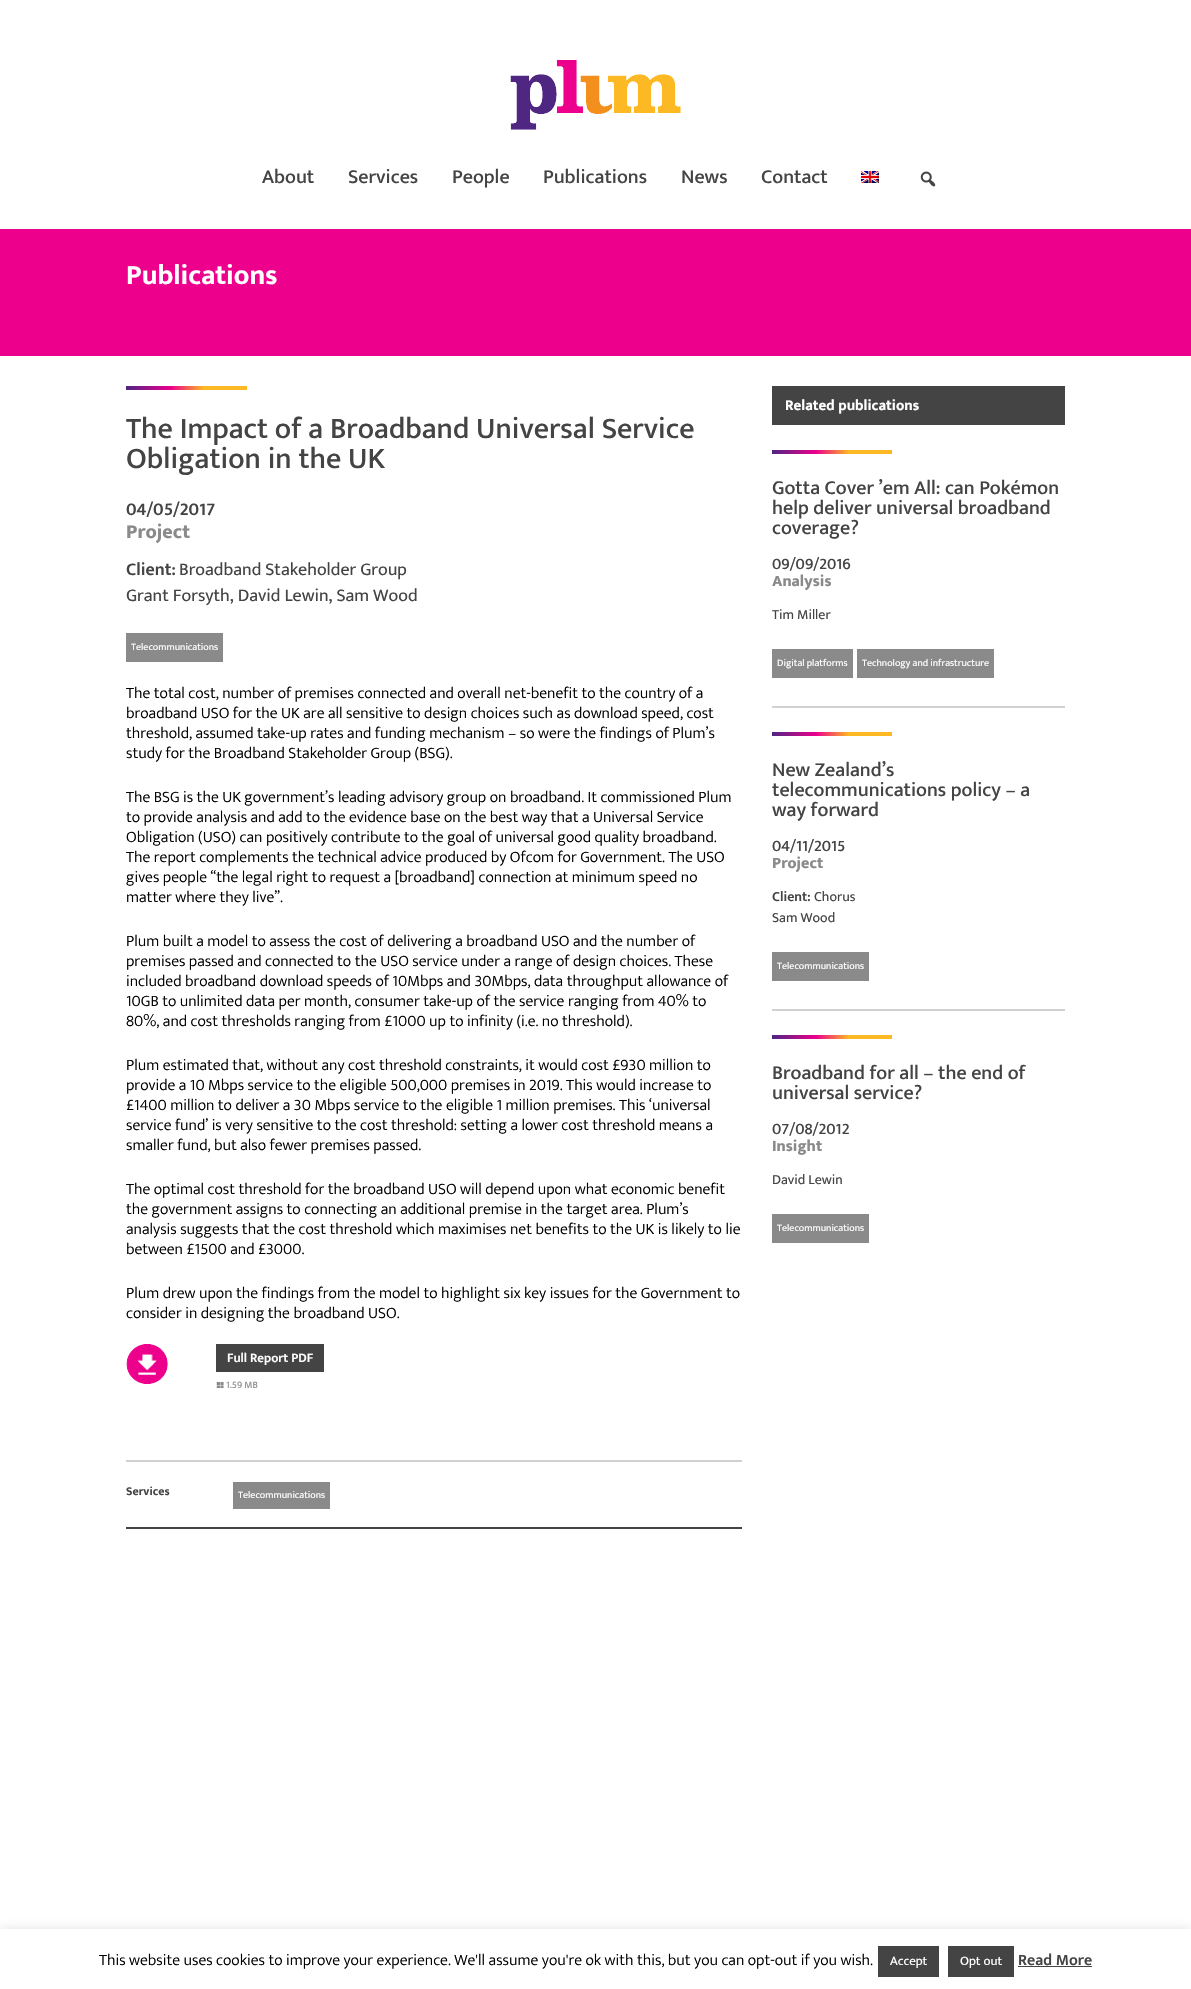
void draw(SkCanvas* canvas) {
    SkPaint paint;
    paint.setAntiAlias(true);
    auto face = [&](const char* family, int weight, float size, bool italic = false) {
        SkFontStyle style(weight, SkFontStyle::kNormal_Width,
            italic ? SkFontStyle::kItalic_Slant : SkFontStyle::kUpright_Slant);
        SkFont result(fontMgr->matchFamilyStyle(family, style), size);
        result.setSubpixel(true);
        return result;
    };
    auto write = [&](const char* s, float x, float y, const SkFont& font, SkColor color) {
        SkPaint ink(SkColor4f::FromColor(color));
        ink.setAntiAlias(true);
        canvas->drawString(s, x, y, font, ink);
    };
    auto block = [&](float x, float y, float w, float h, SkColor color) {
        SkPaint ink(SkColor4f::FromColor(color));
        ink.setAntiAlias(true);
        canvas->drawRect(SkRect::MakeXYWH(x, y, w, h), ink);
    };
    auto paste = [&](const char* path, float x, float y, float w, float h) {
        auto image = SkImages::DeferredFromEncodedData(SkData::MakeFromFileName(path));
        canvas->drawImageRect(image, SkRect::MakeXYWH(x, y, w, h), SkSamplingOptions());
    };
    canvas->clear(SK_ColorWHITE);
    paste("pic1.png", 510, 60, 171, 70);
    auto kFont1 = face("Ek Mukta", 500, 20);
    write("About", 262, 183, kFont1, SkColorSetRGB(68, 68, 68));
    write("Services", 348, 183, kFont1, SkColorSetRGB(68, 68, 68));
    write("People", 452, 183, kFont1, SkColorSetRGB(68, 68, 68));
    write("Publications", 543, 183, kFont1, SkColorSetRGB(68, 68, 68));
    write("News", 681, 183, kFont1, SkColorSetRGB(68, 68, 68));
    write("Contact", 761, 183, kFont1, SkColorSetRGB(68, 68, 68));
    paste("pic2.png", 861, 171, 18, 12);
    paste("pic3.png", 920, 171, 16, 16);
    block(0, 229, 1191, 127, SkColorSetRGB(236, 0, 140));
    auto kFont2 = face("Ek Mukta", 700, 28);
    write("Publications", 126, 284, kFont2, SK_ColorWHITE);
    block(126, 1527, 616, 2, SkColorSetRGB(68, 68, 68));
    paste("pic4.png", 126, 386, 121, 4);
    auto kFont3 = face("Ek Mukta", 500, 30);
    write("The Impact of a Broadband Universal Service", 126, 438, kFont3, SkColorSetRGB(68, 68, 68));
    write("Obligation in the UK", 126, 468, kFont3, SkColorSetRGB(68, 68, 68));
    auto kFont4 = face("Ek Mukta", 600, 18);
    write("04/05/2017", 126, 515, kFont4, SkColorSetRGB(68, 68, 68));
    auto kFont5 = face("Ek Mukta", 800, 20);
    write("Project", 126, 538, kFont5, SkColorSetRGB(138, 138, 138));
    write("Client:", 126, 575, kFont4, SkColorSetRGB(68, 68, 68));
    auto kFont6 = face("Ek Mukta", 400, 18);
    write("Broadband Stakeholder Group", 179, 575, kFont6, SkColorSetRGB(68, 68, 68));
    write("Grant Forsyth, David Lewin, Sam Wood", 126, 601, kFont6, SkColorSetRGB(68, 68, 68));
    block(126, 633, 97, 29, SkColorSetRGB(138, 138, 138));
    auto kFont7 = face("Ek Mukta", 400, 10);
    write("Telecommunications", 131, 650, kFont7, SK_ColorWHITE);
    auto kFont8 = face("Ek Mukta", 300, 16);
    write("The total cost, number of premises connected and overall net-benefit to the country of a", 126, 698, kFont8, SK_ColorBLACK);
    write("broadband USO for the UK are all sensitive to design choices such as download speed, cost", 126, 718, kFont8, SK_ColorBLACK);
    write("threshold, assumed take-up rates and funding mechanism – so were the findings of Plum’s", 126, 738, kFont8, SK_ColorBLACK);
    write("study for the Broadband Stakeholder Group (BSG).", 126, 758, kFont8, SK_ColorBLACK);
    write("The BSG is the UK government’s leading advisory group on broadband. It commissioned Plum", 126, 802, kFont8, SK_ColorBLACK);
    write("to provide analysis and add to the evidence base on the best way that a Universal Service", 126, 822, kFont8, SK_ColorBLACK);
    write("Obligation (USO) can positively contribute to the goal of universal good quality broadband.", 126, 842, kFont8, SK_ColorBLACK);
    write("The report complements the technical advice produced by Ofcom for Government. The USO", 126, 862, kFont8, SK_ColorBLACK);
    write("gives people “the legal right to request a [broadband] connection at minimum speed no", 126, 882, kFont8, SK_ColorBLACK);
    write("matter where they live”.", 126, 902, kFont8, SK_ColorBLACK);
    write("Plum built a model to assess the cost of delivering a broadband USO and the number of", 126, 946, kFont8, SK_ColorBLACK);
    write("premises passed and connected to the USO service under a range of design choices. These", 126, 966, kFont8, SK_ColorBLACK);
    write("included broadband download speeds of 10Mbps and 30Mbps, data throughput allowance of", 126, 986, kFont8, SK_ColorBLACK);
    write("10GB to unlimited data per month, consumer take-up of the service ranging from 40% to", 126, 1006, kFont8, SK_ColorBLACK);
    write("80%, and cost thresholds ranging from £1000 up to infinity (i.e. no threshold).", 126, 1026, kFont8, SK_ColorBLACK);
    write("Plum estimated that, without any cost threshold constraints, it would cost £930 million to", 126, 1070, kFont8, SK_ColorBLACK);
    write("provide a 10 Mbps service to the eligible 500,000 premises in 2019. This would increase to", 126, 1090, kFont8, SK_ColorBLACK);
    write("£1400 million to deliver a 30 Mbps service to the eligible 1 million premises. This ‘universal", 126, 1110, kFont8, SK_ColorBLACK);
    write("service fund’ is very sensitive to the cost threshold: setting a lower cost threshold means a", 126, 1130, kFont8, SK_ColorBLACK);
    write("smaller fund, but also fewer premises passed.", 126, 1150, kFont8, SK_ColorBLACK);
    write("The optimal cost threshold for the broadband USO will depend upon what economic benefit", 126, 1194, kFont8, SK_ColorBLACK);
    write("the government assigns to connecting an additional premise in the target area. Plum’s", 126, 1214, kFont8, SK_ColorBLACK);
    write("analysis suggests that the cost threshold which maximises net benefits to the UK is likely to lie", 126, 1234, kFont8, SK_ColorBLACK);
    write("between £1500 and £3000.", 126, 1254, kFont8, SK_ColorBLACK);
    write("Plum drew upon the findings from the model to highlight six key issues for the Government to", 126, 1298, kFont8, SK_ColorBLACK);
    write("consider in designing the broadband USO.", 126, 1318, kFont8, SK_ColorBLACK);
    paste("pic5.png", 126, 1344, 42, 40);
    block(216, 1344, 108, 28, SkColorSetRGB(68, 68, 68));
    auto kFont9 = face("Ek Mukta", 600, 13);
    write("Full Report PDF", 227, 1362, kFont9, SK_ColorWHITE);
    paste("pic6.png", 216, 1382, 8, 7);
    write("1.59 MB", 226, 1388, kFont7, SkColorSetRGB(138, 138, 138));
    block(126, 1460, 616, 2, SkColorSetRGB(209, 209, 209));
    auto kFont10 = face("Ek Mukta", 700, 12);
    write("Services", 126, 1495, kFont10, SkColorSetRGB(68, 68, 68));
    block(233, 1482, 97, 27, SkColorSetRGB(138, 138, 138));
    write("Telecommunications", 238, 1498, kFont7, SK_ColorWHITE);
    block(772, 386, 293, 39, SkColorSetRGB(68, 68, 68));
    auto kFont11 = face("Ek Mukta", 700, 15);
    write("Related publications", 785, 410, kFont11, SK_ColorWHITE);
    block(772, 706, 293, 2, SkColorSetRGB(209, 209, 209));
    paste("pic7.png", 772, 450, 120, 4);
    write("Gotta Cover ’em All: can Pokémon", 772, 494, kFont1, SkColorSetRGB(68, 68, 68));
    write("help deliver universal broadband", 772, 514, kFont1, SkColorSetRGB(68, 68, 68));
    write("coverage?", 772, 534, kFont1, SkColorSetRGB(68, 68, 68));
    auto kFont12 = face("Ek Mukta", 500, 16);
    write("09/09/2016", 772, 569, kFont12, SkColorSetRGB(68, 68, 68));
    auto kFont13 = face("Ek Mukta", 800, 16);
    write("Analysis", 772, 586, kFont13, SkColorSetRGB(138, 138, 138));
    auto kFont14 = face("Ek Mukta", 400, 14);
    write("Tim Miller", 772, 619, kFont14, SkColorSetRGB(68, 68, 68));
    block(772, 649, 81, 29, SkColorSetRGB(138, 138, 138));
    write("Digital platforms", 777, 666, kFont7, SK_ColorWHITE);
    block(857, 649, 137, 29, SkColorSetRGB(138, 138, 138));
    write("Technology and infrastructure", 862, 666, kFont7, SK_ColorWHITE);
    block(772, 1009, 293, 2, SkColorSetRGB(209, 209, 209));
    paste("pic7.png", 772, 732, 120, 4);
    write("New Zealand’s", 772, 776, kFont1, SkColorSetRGB(68, 68, 68));
    write("telecommunications policy – a", 772, 796, kFont1, SkColorSetRGB(68, 68, 68));
    write("way forward", 772, 816, kFont1, SkColorSetRGB(68, 68, 68));
    write("04/11/2015", 772, 851, kFont12, SkColorSetRGB(68, 68, 68));
    write("Project", 772, 868, kFont13, SkColorSetRGB(138, 138, 138));
    auto kFont15 = face("Ek Mukta", 600, 14);
    write("Client:", 772, 901, kFont15, SkColorSetRGB(68, 68, 68));
    write("Chorus", 814, 901, kFont14, SkColorSetRGB(68, 68, 68));
    write("Sam Wood", 772, 922, kFont14, SkColorSetRGB(68, 68, 68));
    block(772, 952, 97, 29, SkColorSetRGB(138, 138, 138));
    write("Telecommunications", 777, 969, kFont7, SK_ColorWHITE);
    paste("pic7.png", 772, 1035, 120, 4);
    write("Broadband for all – the end of", 772, 1079, kFont1, SkColorSetRGB(68, 68, 68));
    write("universal service?", 772, 1099, kFont1, SkColorSetRGB(68, 68, 68));
    write("07/08/2012", 772, 1134, kFont12, SkColorSetRGB(68, 68, 68));
    write("Insight", 772, 1151, kFont13, SkColorSetRGB(138, 138, 138));
    write("David Lewin", 772, 1184, kFont14, SkColorSetRGB(68, 68, 68));
    block(772, 1214, 97, 29, SkColorSetRGB(138, 138, 138));
    write("Telecommunications", 777, 1231, kFont7, SK_ColorWHITE);
    paint.setColor(SkColorSetARGB(77, 172, 171, 171));
    paint.setMaskFilter(SkMaskFilter::MakeBlur(kNormal_SkBlurStyle, 5));
    canvas->drawRect(SkRect::MakeXYWH(0, 1928, 1191, 60), paint);
    paint.setMaskFilter(nullptr);
    block(0, 1929, 1191, 60, SK_ColorWHITE);
    write("This website uses cookies to improve your experience. We'll assume you're ok with this, but you can opt-out if you wish.", 99, 1965, kFont8, SK_ColorBLACK);
    block(878, 1946, 61, 31, SkColorSetRGB(68, 68, 68));
    auto kFont16 = face("Ek Mukta", 400, 13);
    write("Accept", 890, 1965, kFont16, SK_ColorWHITE);
    block(948, 1946, 66, 31, SkColorSetRGB(68, 68, 68));
    write("Opt out", 960, 1965, kFont16, SK_ColorWHITE);
    auto kFont17 = face("Ek Mukta", 600, 16);
    write("Read More", 1018, 1965, kFont17, SkColorSetRGB(68, 68, 68));
    block(1018, 1966, 74, 1, SkColorSetRGB(68, 68, 68));
}
